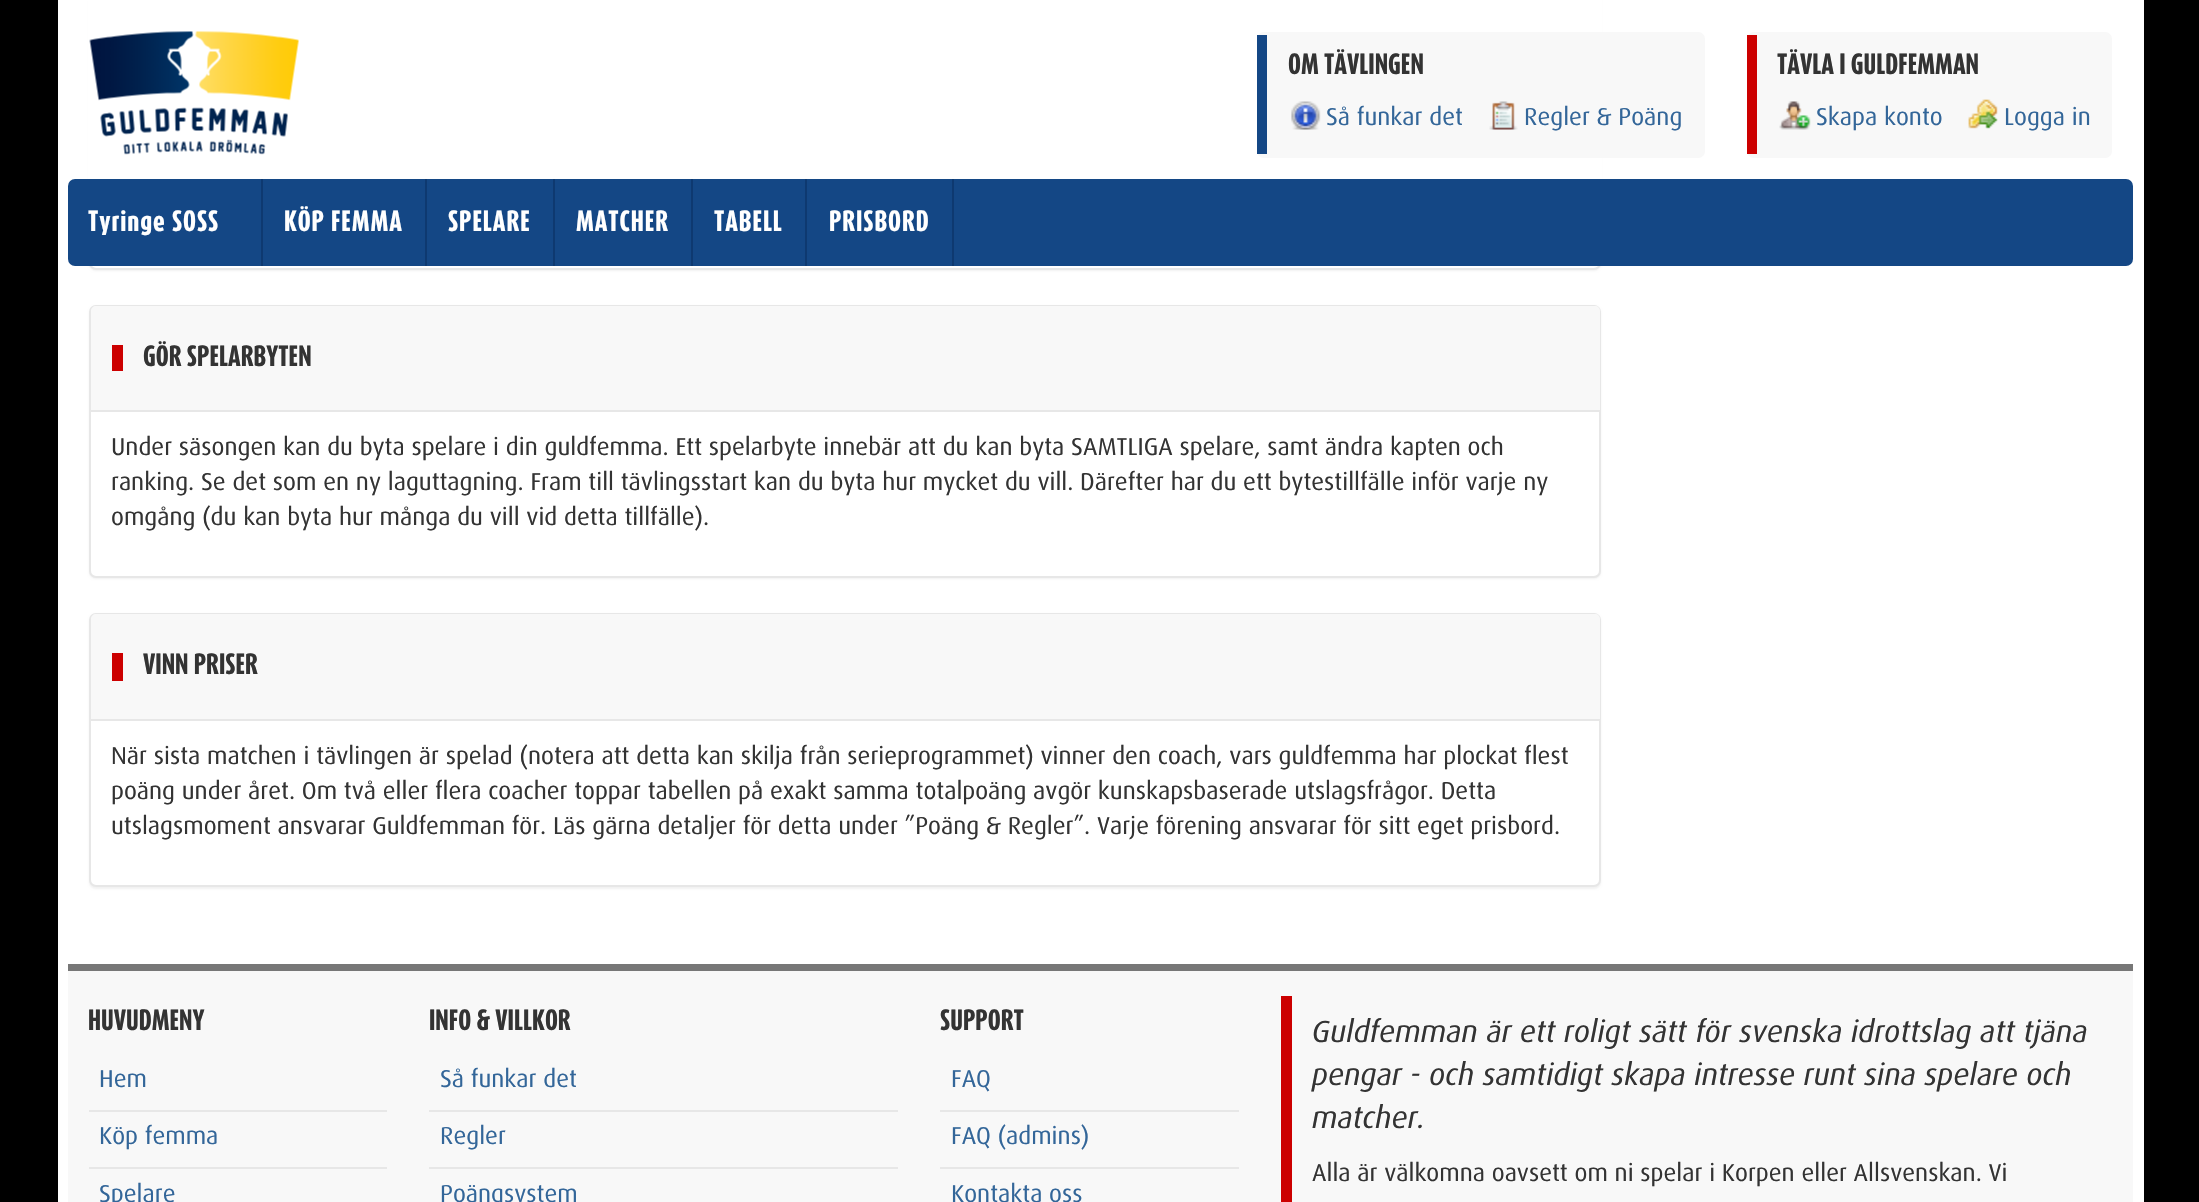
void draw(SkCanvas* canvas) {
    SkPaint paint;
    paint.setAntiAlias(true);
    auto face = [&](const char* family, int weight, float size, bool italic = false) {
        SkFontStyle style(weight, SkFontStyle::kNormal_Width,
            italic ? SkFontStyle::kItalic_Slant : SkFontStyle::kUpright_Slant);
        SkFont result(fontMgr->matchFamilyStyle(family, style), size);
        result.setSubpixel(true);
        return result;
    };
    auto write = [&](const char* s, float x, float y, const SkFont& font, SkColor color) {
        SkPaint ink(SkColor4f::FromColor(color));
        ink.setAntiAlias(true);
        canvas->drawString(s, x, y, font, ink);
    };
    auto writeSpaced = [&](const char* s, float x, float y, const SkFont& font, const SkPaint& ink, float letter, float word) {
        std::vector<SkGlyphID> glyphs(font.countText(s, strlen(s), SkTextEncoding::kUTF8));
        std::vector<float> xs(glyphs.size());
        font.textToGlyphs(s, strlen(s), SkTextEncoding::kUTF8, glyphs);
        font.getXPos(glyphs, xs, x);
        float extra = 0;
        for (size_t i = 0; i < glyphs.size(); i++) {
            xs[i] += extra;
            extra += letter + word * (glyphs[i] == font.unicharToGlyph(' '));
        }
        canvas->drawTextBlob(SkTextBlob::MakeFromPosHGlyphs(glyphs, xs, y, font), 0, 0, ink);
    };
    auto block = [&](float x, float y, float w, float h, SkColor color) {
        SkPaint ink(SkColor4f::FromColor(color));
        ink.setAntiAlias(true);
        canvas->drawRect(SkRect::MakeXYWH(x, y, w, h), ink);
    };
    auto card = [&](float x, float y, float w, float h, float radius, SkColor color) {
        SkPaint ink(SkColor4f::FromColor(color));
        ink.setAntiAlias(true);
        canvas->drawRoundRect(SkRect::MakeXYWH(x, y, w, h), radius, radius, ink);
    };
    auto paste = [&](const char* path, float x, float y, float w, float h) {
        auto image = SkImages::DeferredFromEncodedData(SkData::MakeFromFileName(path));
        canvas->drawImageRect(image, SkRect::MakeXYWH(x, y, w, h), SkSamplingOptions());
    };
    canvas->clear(SK_ColorBLACK);
    block(58, 0, 2086, 1202, SK_ColorWHITE);
    paint.setColor(SkColorSetARGB(13, 0, 0, 0));
    paint.setMaskFilter(SkMaskFilter::MakeBlur(kNormal_SkBlurStyle, 1));
    canvas->drawRoundRect(SkRect::MakeXYWH(89, -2, 1512, 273), 7, 7, paint);
    paint.setMaskFilter(nullptr);
    paint.setColor(SK_ColorWHITE);
    canvas->drawRoundRect(SkRect::MakeXYWH(90, -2, 1510, 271), 6, 6, paint);
    paint.setStyle(SkPaint::kStroke_Style);
    paint.setStrokeWidth(2);
    paint.setColor(SkColorSetRGB(231, 231, 231));
    canvas->drawRoundRect(SkRect::MakeXYWH(90, -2, 1510, 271), 6, 6, paint);
    block(88, 0, 1514, 266, SK_ColorWHITE);
    paste("pic1.png", 89, 31, 210, 124);
    card(1257, 32, 448, 126, 7, SkColorSetRGB(248, 248, 248));
    block(1257, 35, 10, 119, SkColorSetRGB(20, 71, 133));
    auto kFont1 = face("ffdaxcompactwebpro", 800, 24.5f);
    write("OM TÄVLINGEN", 1288, 74, kFont1, SkColorSetRGB(51, 51, 51));
    paste("pic2.png", 1291, 101, 30, 29);
    auto kFont2 = face("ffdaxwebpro", 400, 24.5f);
    write("Så funkar det", 1326, 125, kFont2, SkColorSetRGB(51, 102, 153));
    paste("pic3.png", 1489, 101, 29, 29);
    write("Regler & Poäng", 1524, 125, kFont2, SkColorSetRGB(51, 102, 153));
    card(1747, 32, 365, 126, 7, SkColorSetRGB(248, 248, 248));
    block(1747, 35, 10, 119, SkColorSetRGB(204, 0, 0));
    write("TÄVLA I GULDFEMMAN", 1777, 74, kFont1, SkColorSetRGB(51, 51, 51));
    paste("pic4.png", 1779, 101, 32, 29);
    write("Skapa konto", 1816, 125, kFont2, SkColorSetRGB(51, 102, 153));
    paste("pic5.png", 1968, 99, 30, 30);
    write("Logga in", 2004, 125, kFont2, SkColorSetRGB(51, 102, 153));
    card(68, 179, 2065, 87, 7, SkColorSetRGB(20, 71, 133));
    block(261, 179, 2, 87, SkColorSetRGB(14, 57, 112));
    paint.setStyle(SkPaint::kFill_Style);
    paint.setColor(SK_ColorWHITE);
    writeSpaced("Tyringe SOSS", 88, 231, kFont1, paint, 0.9f, 0);
    block(425, 179, 2, 87, SkColorSetRGB(14, 57, 112));
    writeSpaced("KÖP FEMMA", 284, 231, kFont1, paint, 0.9f, 0);
    block(553, 179, 2, 87, SkColorSetRGB(14, 57, 112));
    writeSpaced("SPELARE", 448, 231, kFont1, paint, 0.9f, 0);
    block(691, 179, 2, 87, SkColorSetRGB(14, 57, 112));
    writeSpaced("MATCHER", 576, 231, kFont1, paint, 0.9f, 0);
    block(805, 179, 2, 87, SkColorSetRGB(14, 57, 112));
    writeSpaced("TABELL", 714, 231, kFont1, paint, 0.9f, 0);
    block(952, 179, 2, 87, SkColorSetRGB(14, 57, 112));
    writeSpaced("PRISBORD", 829, 231, kFont1, paint, 0.9f, 0);
    paint.setColor(SkColorSetARGB(13, 0, 0, 0));
    paint.setMaskFilter(SkMaskFilter::MakeBlur(kNormal_SkBlurStyle, 1));
    canvas->drawRoundRect(SkRect::MakeXYWH(89, 306, 1512, 273), 7, 7, paint);
    paint.setMaskFilter(nullptr);
    paint.setColor(SK_ColorWHITE);
    canvas->drawRoundRect(SkRect::MakeXYWH(90, 306, 1510, 271), 6, 6, paint);
    paint.setStyle(SkPaint::kStroke_Style);
    paint.setColor(SkColorSetRGB(231, 231, 231));
    canvas->drawRoundRect(SkRect::MakeXYWH(90, 306, 1510, 271), 6, 6, paint);
    paint.setStyle(SkPaint::kFill_Style);
    paint.setColor(SkColorSetRGB(248, 248, 248));
    canvas->drawPath(SkPathBuilder().moveTo(96, 306).lineTo(1595, 306).cubicTo(1598, 306, 1600, 308, 1600, 311).lineTo(1600, 411).lineTo(91, 411).lineTo(91, 311).cubicTo(91, 308, 93, 306, 96, 306).close().detach(), paint);
    block(91, 410, 1509, 2, SkColorSetRGB(231, 231, 231));
    block(112, 345, 11, 26, SkColorSetRGB(204, 0, 0));
    write("GÖR SPELARBYTEN", 143, 366, kFont1, SkColorSetRGB(51, 51, 51));
    write("Under säsongen kan du byta spelare i din guldfemma. Ett spelarbyte innebär att du kan byta SAMTLIGA spelare, samt ändra kapten och", 111, 455, kFont2, SkColorSetRGB(51, 51, 51));
    write("ranking. Se det som en ny laguttagning. Fram till tävlingsstart kan du byta hur mycket du vill. Därefter har du ett bytestillfälle inför varje ny", 111, 490, kFont2, SkColorSetRGB(51, 51, 51));
    write("omgång (du kan byta hur många du vill vid detta tillfälle).", 111, 525, kFont2, SkColorSetRGB(51, 51, 51));
    paint.setColor(SkColorSetARGB(13, 0, 0, 0));
    paint.setMaskFilter(SkMaskFilter::MakeBlur(kNormal_SkBlurStyle, 1));
    canvas->drawRoundRect(SkRect::MakeXYWH(89, 614, 1512, 275), 7, 7, paint);
    paint.setMaskFilter(nullptr);
    paint.setColor(SK_ColorWHITE);
    canvas->drawRoundRect(SkRect::MakeXYWH(90, 614, 1510, 272), 6, 6, paint);
    paint.setStyle(SkPaint::kStroke_Style);
    paint.setColor(SkColorSetRGB(231, 231, 231));
    canvas->drawRoundRect(SkRect::MakeXYWH(90, 614, 1510, 272), 6, 6, paint);
    paint.setStyle(SkPaint::kFill_Style);
    paint.setColor(SkColorSetRGB(248, 248, 248));
    canvas->drawPath(SkPathBuilder().moveTo(96, 614).lineTo(1595, 614).cubicTo(1598, 614, 1600, 616, 1600, 619).lineTo(1600, 721).lineTo(91, 721).lineTo(91, 619).cubicTo(91, 616, 93, 614, 96, 614).close().detach(), paint);
    block(91, 719, 1509, 2, SkColorSetRGB(231, 231, 231));
    block(112, 653, 11, 28, SkColorSetRGB(204, 0, 0));
    write("VINN PRISER", 143, 674, kFont1, SkColorSetRGB(51, 51, 51));
    write("När sista matchen i tävlingen är spelad (notera att detta kan skilja från serieprogrammet) vinner den coach, vars guldfemma har plockat flest", 111, 764, kFont2, SkColorSetRGB(51, 51, 51));
    write("poäng under året. Om två eller flera coacher toppar tabellen på exakt samma totalpoäng avgör kunskapsbaserade utslagsfrågor. Detta", 111, 799, kFont2, SkColorSetRGB(51, 51, 51));
    write("utslagsmoment ansvarar Guldfemman för. Läs gärna detaljer för detta under ”Poäng & Regler”. Varje förening ansvarar för sitt eget prisbord.", 111, 834, kFont2, SkColorSetRGB(51, 51, 51));
    block(68, 971, 2065, 231, SkColorSetRGB(248, 248, 248));
    block(68, 964, 2065, 7, SkColorSetRGB(119, 119, 119));
    write("HUVUDMENY", 88, 1030, kFont1, SkColorSetRGB(51, 51, 51));
    block(89, 1110, 298, 2, SkColorSetRGB(231, 231, 231));
    write("Hem", 99, 1087, kFont2, SkColorSetRGB(51, 102, 153));
    block(89, 1167, 298, 2, SkColorSetRGB(231, 231, 231));
    write("Köp femma", 99, 1144, kFont2, SkColorSetRGB(51, 102, 153));
    write("Spelare", 99, 1202, kFont2, SkColorSetRGB(51, 102, 153));
    write("INFO & VILLKOR", 429, 1030, kFont1, SkColorSetRGB(51, 51, 51));
    block(429, 1110, 469, 2, SkColorSetRGB(231, 231, 231));
    write("Så funkar det", 440, 1087, kFont2, SkColorSetRGB(51, 102, 153));
    block(429, 1167, 469, 2, SkColorSetRGB(231, 231, 231));
    write("Regler", 440, 1144, kFont2, SkColorSetRGB(51, 102, 153));
    write("Poängsystem", 440, 1202, kFont2, SkColorSetRGB(51, 102, 153));
    write("SUPPORT", 940, 1030, kFont1, SkColorSetRGB(51, 51, 51));
    block(940, 1110, 299, 2, SkColorSetRGB(231, 231, 231));
    write("FAQ", 951, 1087, kFont2, SkColorSetRGB(51, 102, 153));
    block(940, 1167, 299, 2, SkColorSetRGB(231, 231, 231));
    write("FAQ (admins)", 951, 1144, kFont2, SkColorSetRGB(51, 102, 153));
    write("Kontakta oss", 951, 1202, kFont2, SkColorSetRGB(51, 102, 153));
    block(1281, 996, 11, 206, SkColorSetRGB(204, 0, 0));
    auto kFont3 = face("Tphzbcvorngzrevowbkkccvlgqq", 400, 30.6f, true);
    write("Guldfemman är ett roligt sätt för svenska idrottslag att tjäna", 1312, 1042, kFont3, SkColorSetRGB(51, 51, 51));
    write("pengar - och samtidigt skapa intresse runt sina spelare och", 1312, 1085, kFont3, SkColorSetRGB(51, 51, 51));
    write("matcher.", 1312, 1128, kFont3, SkColorSetRGB(51, 51, 51));
    write("Alla är välkomna oavsett om ni spelar i Korpen eller Allsvenskan. Vi", 1312, 1181, kFont2, SkColorSetRGB(51, 51, 51));
}
